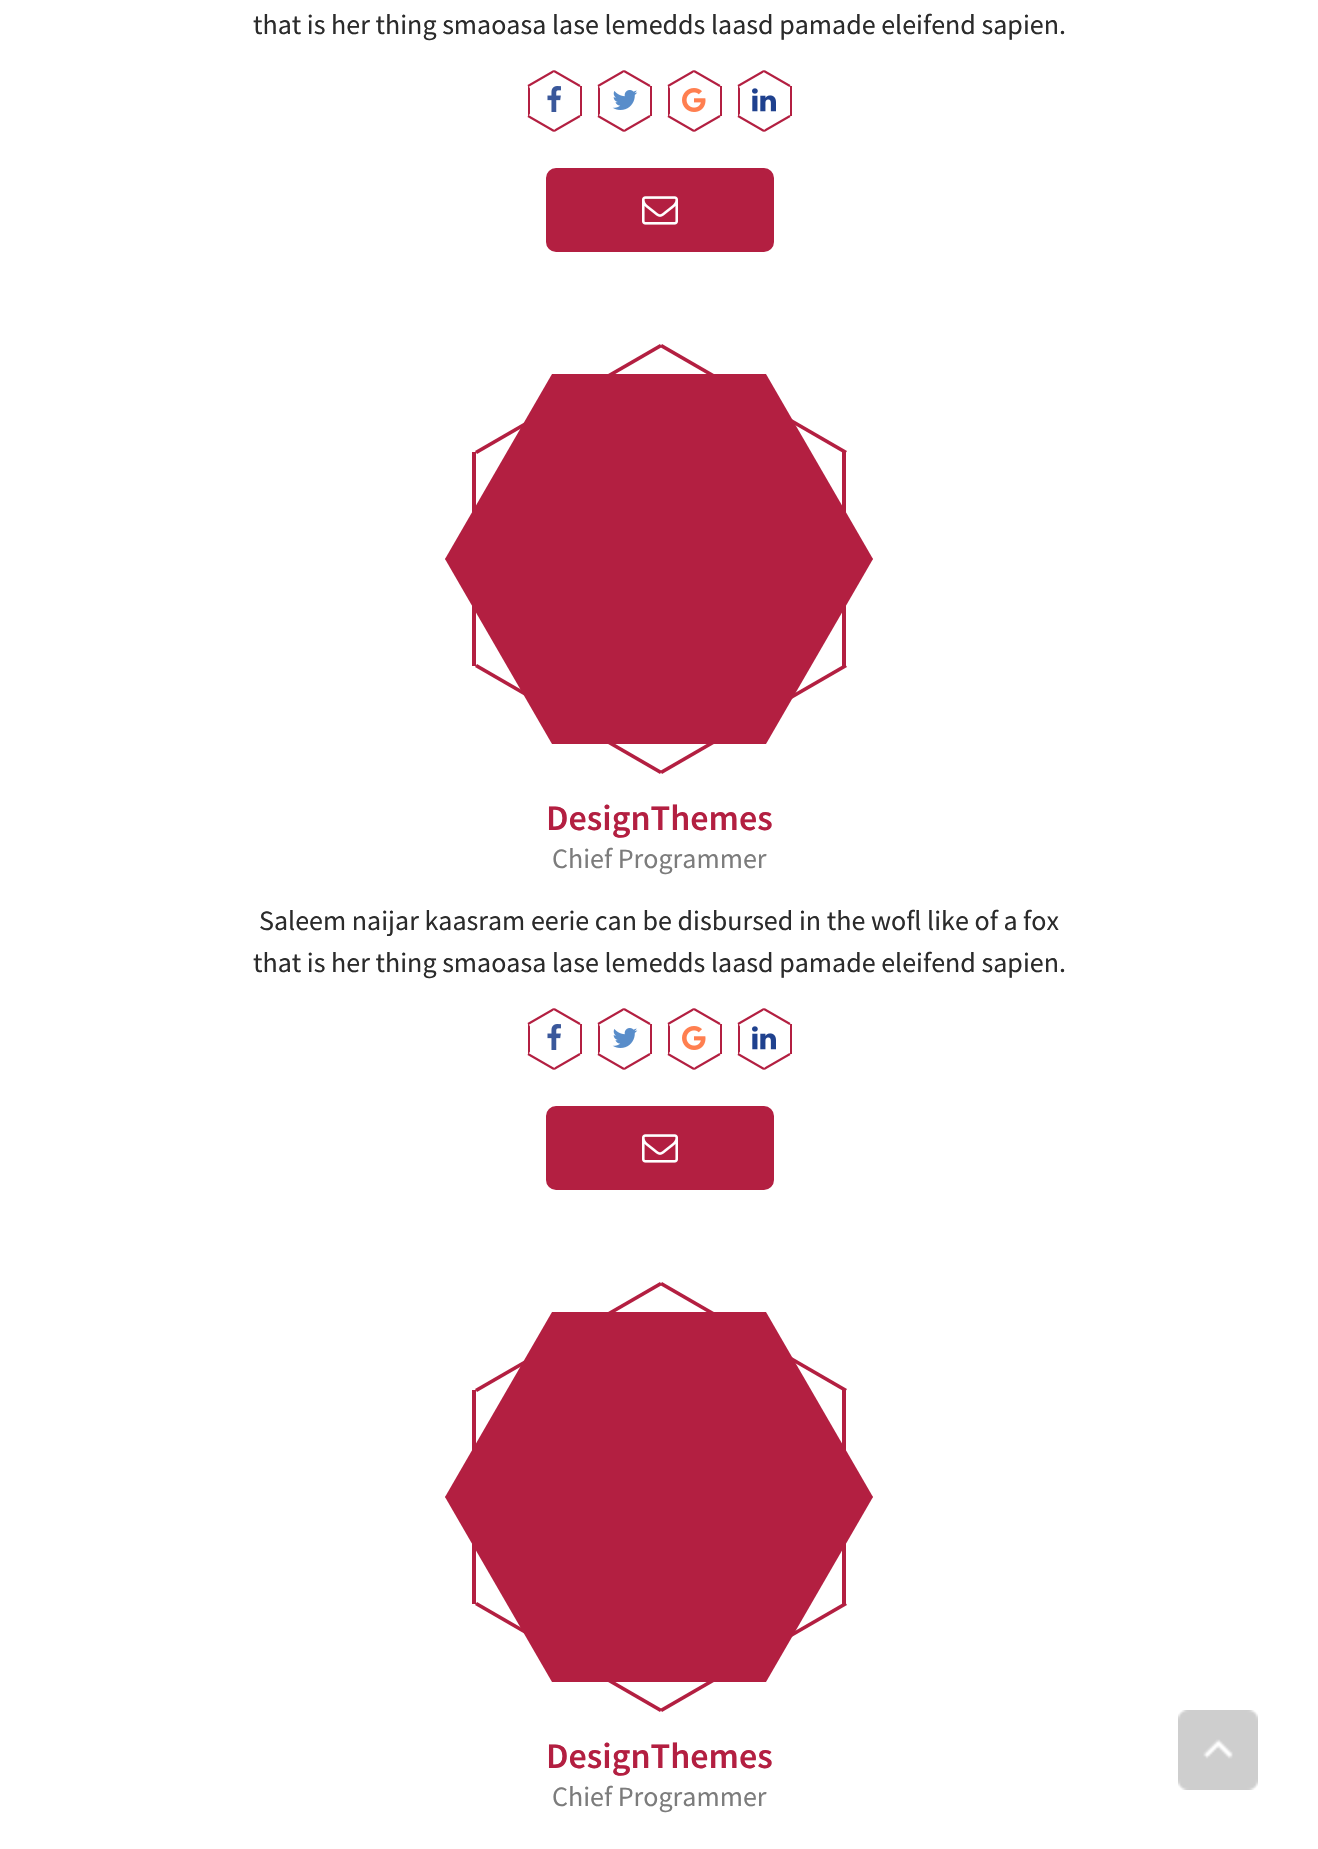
void draw(SkCanvas* canvas) {
    SkPaint paint;
    paint.setAntiAlias(true);
    auto face = [&](const char* family, int weight, float size, bool italic = false) {
        SkFontStyle style(weight, SkFontStyle::kNormal_Width,
            italic ? SkFontStyle::kItalic_Slant : SkFontStyle::kUpright_Slant);
        SkFont result(fontMgr->matchFamilyStyle(family, style), size);
        result.setSubpixel(true);
        return result;
    };
    auto write = [&](const char* s, float x, float y, const SkFont& font, SkColor color) {
        SkPaint ink(SkColor4f::FromColor(color));
        ink.setAntiAlias(true);
        canvas->drawString(s, x, y, font, ink);
    };
    auto block = [&](float x, float y, float w, float h, SkColor color) {
        SkPaint ink(SkColor4f::FromColor(color));
        ink.setAntiAlias(true);
        canvas->drawRect(SkRect::MakeXYWH(x, y, w, h), ink);
    };
    auto paste = [&](const char* path, float x, float y, float w, float h) {
        auto image = SkImages::DeferredFromEncodedData(SkData::MakeFromFileName(path));
        canvas->drawImageRect(image, SkRect::MakeXYWH(x, y, w, h), SkSamplingOptions());
    };
    canvas->clear(SK_ColorWHITE);
    auto kFont1 = face("Source Sans Pro", 400, 28);
    write("that is her thing smaoasa lase lemedds laasd pamade eleifend sapien.", 253, 34, kFont1, SkColorSetRGB(43, 43, 43));
    block(580, 86, 2, 30, SkColorSetRGB(179, 31, 65));
    block(528, 86, 2, 30, SkColorSetRGB(179, 31, 65));
    paint.setColor(SK_ColorWHITE);
    canvas->drawPath(SkPathBuilder().moveTo(553, 70).lineTo(580, 117).lineTo(555, 132).lineTo(528, 85).close().detach(), paint);
    paint.setColor(SkColorSetRGB(179, 31, 65));
    canvas->drawPath(SkPathBuilder().moveTo(579.5f, 115).lineTo(580.5f, 117).lineTo(554.5f, 132).lineTo(553.5f, 130).close().moveTo(553.5f, 70).lineTo(554.5f, 72).lineTo(528.5f, 87).lineTo(527.5f, 85).close().detach(), paint);
    paint.setColor(SK_ColorWHITE);
    canvas->drawPath(SkPathBuilder().moveTo(528, 117).lineTo(555, 70).lineTo(580, 85).lineTo(553, 132).close().detach(), paint);
    paint.setColor(SkColorSetRGB(179, 31, 65));
    canvas->drawPath(SkPathBuilder().moveTo(553.5f, 72).lineTo(554.5f, 70).lineTo(580.5f, 85).lineTo(579.5f, 87).close().moveTo(527.5f, 117).lineTo(528.5f, 115).lineTo(554.5f, 130).lineTo(553.5f, 132).close().detach(), paint);
    paste("pic1.png", 547, 86, 14, 26);
    block(650, 86, 2, 30, SkColorSetRGB(179, 31, 65));
    block(598, 86, 2, 30, SkColorSetRGB(179, 31, 65));
    paint.setColor(SK_ColorWHITE);
    canvas->drawPath(SkPathBuilder().moveTo(623, 70).lineTo(650, 117).lineTo(625, 132).lineTo(598, 85).close().detach(), paint);
    paint.setColor(SkColorSetRGB(179, 31, 65));
    canvas->drawPath(SkPathBuilder().moveTo(649.5f, 115).lineTo(650.5f, 117).lineTo(624.5f, 132).lineTo(623.5f, 130).close().moveTo(623.5f, 70).lineTo(624.5f, 72).lineTo(598.5f, 87).lineTo(597.5f, 85).close().detach(), paint);
    paint.setColor(SK_ColorWHITE);
    canvas->drawPath(SkPathBuilder().moveTo(598, 117).lineTo(625, 70).lineTo(650, 85).lineTo(623, 132).close().detach(), paint);
    paint.setColor(SkColorSetRGB(179, 31, 65));
    canvas->drawPath(SkPathBuilder().moveTo(623.5f, 72).lineTo(624.5f, 70).lineTo(650.5f, 85).lineTo(649.5f, 87).close().moveTo(597.5f, 117).lineTo(598.5f, 115).lineTo(624.5f, 130).lineTo(623.5f, 132).close().detach(), paint);
    paste("pic2.png", 612, 90, 26, 20);
    block(720, 86, 2, 30, SkColorSetRGB(179, 31, 65));
    block(668, 86, 2, 30, SkColorSetRGB(179, 31, 65));
    paint.setColor(SK_ColorWHITE);
    canvas->drawPath(SkPathBuilder().moveTo(693, 70).lineTo(720, 117).lineTo(695, 132).lineTo(668, 85).close().detach(), paint);
    paint.setColor(SkColorSetRGB(179, 31, 65));
    canvas->drawPath(SkPathBuilder().moveTo(719.5f, 115).lineTo(720.5f, 117).lineTo(694.5f, 132).lineTo(693.5f, 130).close().moveTo(693.5f, 70).lineTo(694.5f, 72).lineTo(668.5f, 87).lineTo(667.5f, 85).close().detach(), paint);
    paint.setColor(SK_ColorWHITE);
    canvas->drawPath(SkPathBuilder().moveTo(668, 117).lineTo(695, 70).lineTo(720, 85).lineTo(693, 132).close().detach(), paint);
    paint.setColor(SkColorSetRGB(179, 31, 65));
    canvas->drawPath(SkPathBuilder().moveTo(693.5f, 72).lineTo(694.5f, 70).lineTo(720.5f, 85).lineTo(719.5f, 87).close().moveTo(667.5f, 117).lineTo(668.5f, 115).lineTo(694.5f, 130).lineTo(693.5f, 132).close().detach(), paint);
    paste("pic3.png", 682, 88, 24, 24);
    block(790, 86, 2, 30, SkColorSetRGB(179, 31, 65));
    block(738, 86, 2, 30, SkColorSetRGB(179, 31, 65));
    paint.setColor(SK_ColorWHITE);
    canvas->drawPath(SkPathBuilder().moveTo(763, 70).lineTo(790, 117).lineTo(765, 132).lineTo(738, 85).close().detach(), paint);
    paint.setColor(SkColorSetRGB(179, 31, 65));
    canvas->drawPath(SkPathBuilder().moveTo(789.5f, 115).lineTo(790.5f, 117).lineTo(764.5f, 132).lineTo(763.5f, 130).close().moveTo(763.5f, 70).lineTo(764.5f, 72).lineTo(738.5f, 87).lineTo(737.5f, 85).close().detach(), paint);
    paint.setColor(SK_ColorWHITE);
    canvas->drawPath(SkPathBuilder().moveTo(738, 117).lineTo(765, 70).lineTo(790, 85).lineTo(763, 132).close().detach(), paint);
    paint.setColor(SkColorSetRGB(179, 31, 65));
    canvas->drawPath(SkPathBuilder().moveTo(763.5f, 72).lineTo(764.5f, 70).lineTo(790.5f, 85).lineTo(789.5f, 87).close().moveTo(737.5f, 117).lineTo(738.5f, 115).lineTo(764.5f, 130).lineTo(763.5f, 132).close().detach(), paint);
    paste("pic4.png", 752, 88, 24, 24);
    canvas->drawRoundRect(SkRect::MakeXYWH(547, 169, 226, 82), 9, 9, paint);
    paint.setStyle(SkPaint::kStroke_Style);
    paint.setStrokeWidth(2);
    canvas->drawRoundRect(SkRect::MakeXYWH(547, 169, 226, 82), 9, 9, paint);
    paste("pic5.png", 642, 196, 36, 29);
    block(552, 374, 214, 370, SkColorSetRGB(179, 31, 65));
    paint.setStyle(SkPaint::kFill_Style);
    canvas->drawPath(SkPathBuilder().moveTo(873, 559).lineTo(552, 744).lineTo(445, 559).lineTo(766, 374).close().detach(), paint);
    canvas->drawPath(SkPathBuilder().moveTo(552, 374).lineTo(873, 559).lineTo(766, 744).lineTo(445, 559).close().detach(), paint);
    block(842, 452, 4, 214, SkColorSetRGB(179, 31, 65));
    block(472, 452, 4, 214, SkColorSetRGB(179, 31, 65));
    canvas->drawPath(SkPathBuilder().moveTo(845, 664).lineTo(847, 667).lineTo(662, 774).lineTo(660, 771).close().detach(), paint);
    canvas->drawPath(SkPathBuilder().moveTo(660, 344).lineTo(662, 347).lineTo(477, 454).lineTo(475, 451).close().detach(), paint);
    canvas->drawPath(SkPathBuilder().moveTo(660, 347).lineTo(662, 344).lineTo(847, 451).lineTo(845, 454).close().detach(), paint);
    canvas->drawPath(SkPathBuilder().moveTo(475, 667).lineTo(477, 664).lineTo(662, 771).lineTo(660, 774).close().detach(), paint);
    auto kFont2 = face("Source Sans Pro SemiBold", 600, 36);
    write("DesignThemes", 546, 830, kFont2, SkColorSetRGB(179, 31, 65));
    write("Chief Programmer", 552, 868, kFont1, SkColorSetRGB(124, 124, 124));
    write("Saleem naijar kaasram eerie can be disbursed in the wofl like of a fox", 259, 930, kFont1, SkColorSetRGB(43, 43, 43));
    write("that is her thing smaoasa lase lemedds laasd pamade eleifend sapien.", 253, 972, kFont1, SkColorSetRGB(43, 43, 43));
    block(580, 1024, 2, 30, SkColorSetRGB(179, 31, 65));
    block(528, 1024, 2, 30, SkColorSetRGB(179, 31, 65));
    paint.setColor(SK_ColorWHITE);
    canvas->drawPath(SkPathBuilder().moveTo(553, 1008).lineTo(580, 1055).lineTo(555, 1070).lineTo(528, 1023).close().detach(), paint);
    paint.setColor(SkColorSetRGB(179, 31, 65));
    canvas->drawPath(SkPathBuilder().moveTo(579.5f, 1053).lineTo(580.5f, 1055).lineTo(554.5f, 1070).lineTo(553.5f, 1068).close().moveTo(553.5f, 1008).lineTo(554.5f, 1010).lineTo(528.5f, 1025).lineTo(527.5f, 1023).close().detach(), paint);
    paint.setColor(SK_ColorWHITE);
    canvas->drawPath(SkPathBuilder().moveTo(528, 1055).lineTo(555, 1008).lineTo(580, 1023).lineTo(553, 1070).close().detach(), paint);
    paint.setColor(SkColorSetRGB(179, 31, 65));
    canvas->drawPath(SkPathBuilder().moveTo(553.5f, 1010).lineTo(554.5f, 1008).lineTo(580.5f, 1023).lineTo(579.5f, 1025).close().moveTo(527.5f, 1055).lineTo(528.5f, 1053).lineTo(554.5f, 1068).lineTo(553.5f, 1070).close().detach(), paint);
    paste("pic1.png", 547, 1024, 14, 26);
    block(650, 1024, 2, 30, SkColorSetRGB(179, 31, 65));
    block(598, 1024, 2, 30, SkColorSetRGB(179, 31, 65));
    paint.setColor(SK_ColorWHITE);
    canvas->drawPath(SkPathBuilder().moveTo(623, 1008).lineTo(650, 1055).lineTo(625, 1070).lineTo(598, 1023).close().detach(), paint);
    paint.setColor(SkColorSetRGB(179, 31, 65));
    canvas->drawPath(SkPathBuilder().moveTo(649.5f, 1053).lineTo(650.5f, 1055).lineTo(624.5f, 1070).lineTo(623.5f, 1068).close().moveTo(623.5f, 1008).lineTo(624.5f, 1010).lineTo(598.5f, 1025).lineTo(597.5f, 1023).close().detach(), paint);
    paint.setColor(SK_ColorWHITE);
    canvas->drawPath(SkPathBuilder().moveTo(598, 1055).lineTo(625, 1008).lineTo(650, 1023).lineTo(623, 1070).close().detach(), paint);
    paint.setColor(SkColorSetRGB(179, 31, 65));
    canvas->drawPath(SkPathBuilder().moveTo(623.5f, 1010).lineTo(624.5f, 1008).lineTo(650.5f, 1023).lineTo(649.5f, 1025).close().moveTo(597.5f, 1055).lineTo(598.5f, 1053).lineTo(624.5f, 1068).lineTo(623.5f, 1070).close().detach(), paint);
    paste("pic2.png", 612, 1028, 26, 20);
    block(720, 1024, 2, 30, SkColorSetRGB(179, 31, 65));
    block(668, 1024, 2, 30, SkColorSetRGB(179, 31, 65));
    paint.setColor(SK_ColorWHITE);
    canvas->drawPath(SkPathBuilder().moveTo(693, 1008).lineTo(720, 1055).lineTo(695, 1070).lineTo(668, 1023).close().detach(), paint);
    paint.setColor(SkColorSetRGB(179, 31, 65));
    canvas->drawPath(SkPathBuilder().moveTo(719.5f, 1053).lineTo(720.5f, 1055).lineTo(694.5f, 1070).lineTo(693.5f, 1068).close().moveTo(693.5f, 1008).lineTo(694.5f, 1010).lineTo(668.5f, 1025).lineTo(667.5f, 1023).close().detach(), paint);
    paint.setColor(SK_ColorWHITE);
    canvas->drawPath(SkPathBuilder().moveTo(668, 1055).lineTo(695, 1008).lineTo(720, 1023).lineTo(693, 1070).close().detach(), paint);
    paint.setColor(SkColorSetRGB(179, 31, 65));
    canvas->drawPath(SkPathBuilder().moveTo(693.5f, 1010).lineTo(694.5f, 1008).lineTo(720.5f, 1023).lineTo(719.5f, 1025).close().moveTo(667.5f, 1055).lineTo(668.5f, 1053).lineTo(694.5f, 1068).lineTo(693.5f, 1070).close().detach(), paint);
    paste("pic3.png", 682, 1026, 24, 24);
    block(790, 1024, 2, 30, SkColorSetRGB(179, 31, 65));
    block(738, 1024, 2, 30, SkColorSetRGB(179, 31, 65));
    paint.setColor(SK_ColorWHITE);
    canvas->drawPath(SkPathBuilder().moveTo(763, 1008).lineTo(790, 1055).lineTo(765, 1070).lineTo(738, 1023).close().detach(), paint);
    paint.setColor(SkColorSetRGB(179, 31, 65));
    canvas->drawPath(SkPathBuilder().moveTo(789.5f, 1053).lineTo(790.5f, 1055).lineTo(764.5f, 1070).lineTo(763.5f, 1068).close().moveTo(763.5f, 1008).lineTo(764.5f, 1010).lineTo(738.5f, 1025).lineTo(737.5f, 1023).close().detach(), paint);
    paint.setColor(SK_ColorWHITE);
    canvas->drawPath(SkPathBuilder().moveTo(738, 1055).lineTo(765, 1008).lineTo(790, 1023).lineTo(763, 1070).close().detach(), paint);
    paint.setColor(SkColorSetRGB(179, 31, 65));
    canvas->drawPath(SkPathBuilder().moveTo(763.5f, 1010).lineTo(764.5f, 1008).lineTo(790.5f, 1023).lineTo(789.5f, 1025).close().moveTo(737.5f, 1055).lineTo(738.5f, 1053).lineTo(764.5f, 1068).lineTo(763.5f, 1070).close().detach(), paint);
    paste("pic4.png", 752, 1026, 24, 24);
    canvas->drawRoundRect(SkRect::MakeXYWH(547, 1107, 226, 82), 9, 9, paint);
    paint.setStyle(SkPaint::kStroke_Style);
    canvas->drawRoundRect(SkRect::MakeXYWH(547, 1107, 226, 82), 9, 9, paint);
    paste("pic5.png", 642, 1134, 36, 29);
    block(552, 1312, 214, 370, SkColorSetRGB(179, 31, 65));
    paint.setStyle(SkPaint::kFill_Style);
    canvas->drawPath(SkPathBuilder().moveTo(873, 1497).lineTo(552, 1682).lineTo(445, 1497).lineTo(766, 1312).close().detach(), paint);
    canvas->drawPath(SkPathBuilder().moveTo(552, 1312).lineTo(873, 1497).lineTo(766, 1682).lineTo(445, 1497).close().detach(), paint);
    block(842, 1390, 4, 214, SkColorSetRGB(179, 31, 65));
    block(472, 1390, 4, 214, SkColorSetRGB(179, 31, 65));
    canvas->drawPath(SkPathBuilder().moveTo(845, 1602).lineTo(847, 1605).lineTo(662, 1712).lineTo(660, 1709).close().detach(), paint);
    canvas->drawPath(SkPathBuilder().moveTo(660, 1282).lineTo(662, 1285).lineTo(477, 1392).lineTo(475, 1389).close().detach(), paint);
    canvas->drawPath(SkPathBuilder().moveTo(660, 1285).lineTo(662, 1282).lineTo(847, 1389).lineTo(845, 1392).close().detach(), paint);
    canvas->drawPath(SkPathBuilder().moveTo(475, 1605).lineTo(477, 1602).lineTo(662, 1709).lineTo(660, 1712).close().detach(), paint);
    write("DesignThemes", 546, 1768, kFont2, SkColorSetRGB(179, 31, 65));
    write("Chief Programmer", 552, 1806, kFont1, SkColorSetRGB(124, 124, 124));
    paste("pic6.png", 1178, 1710, 80, 80);
}
